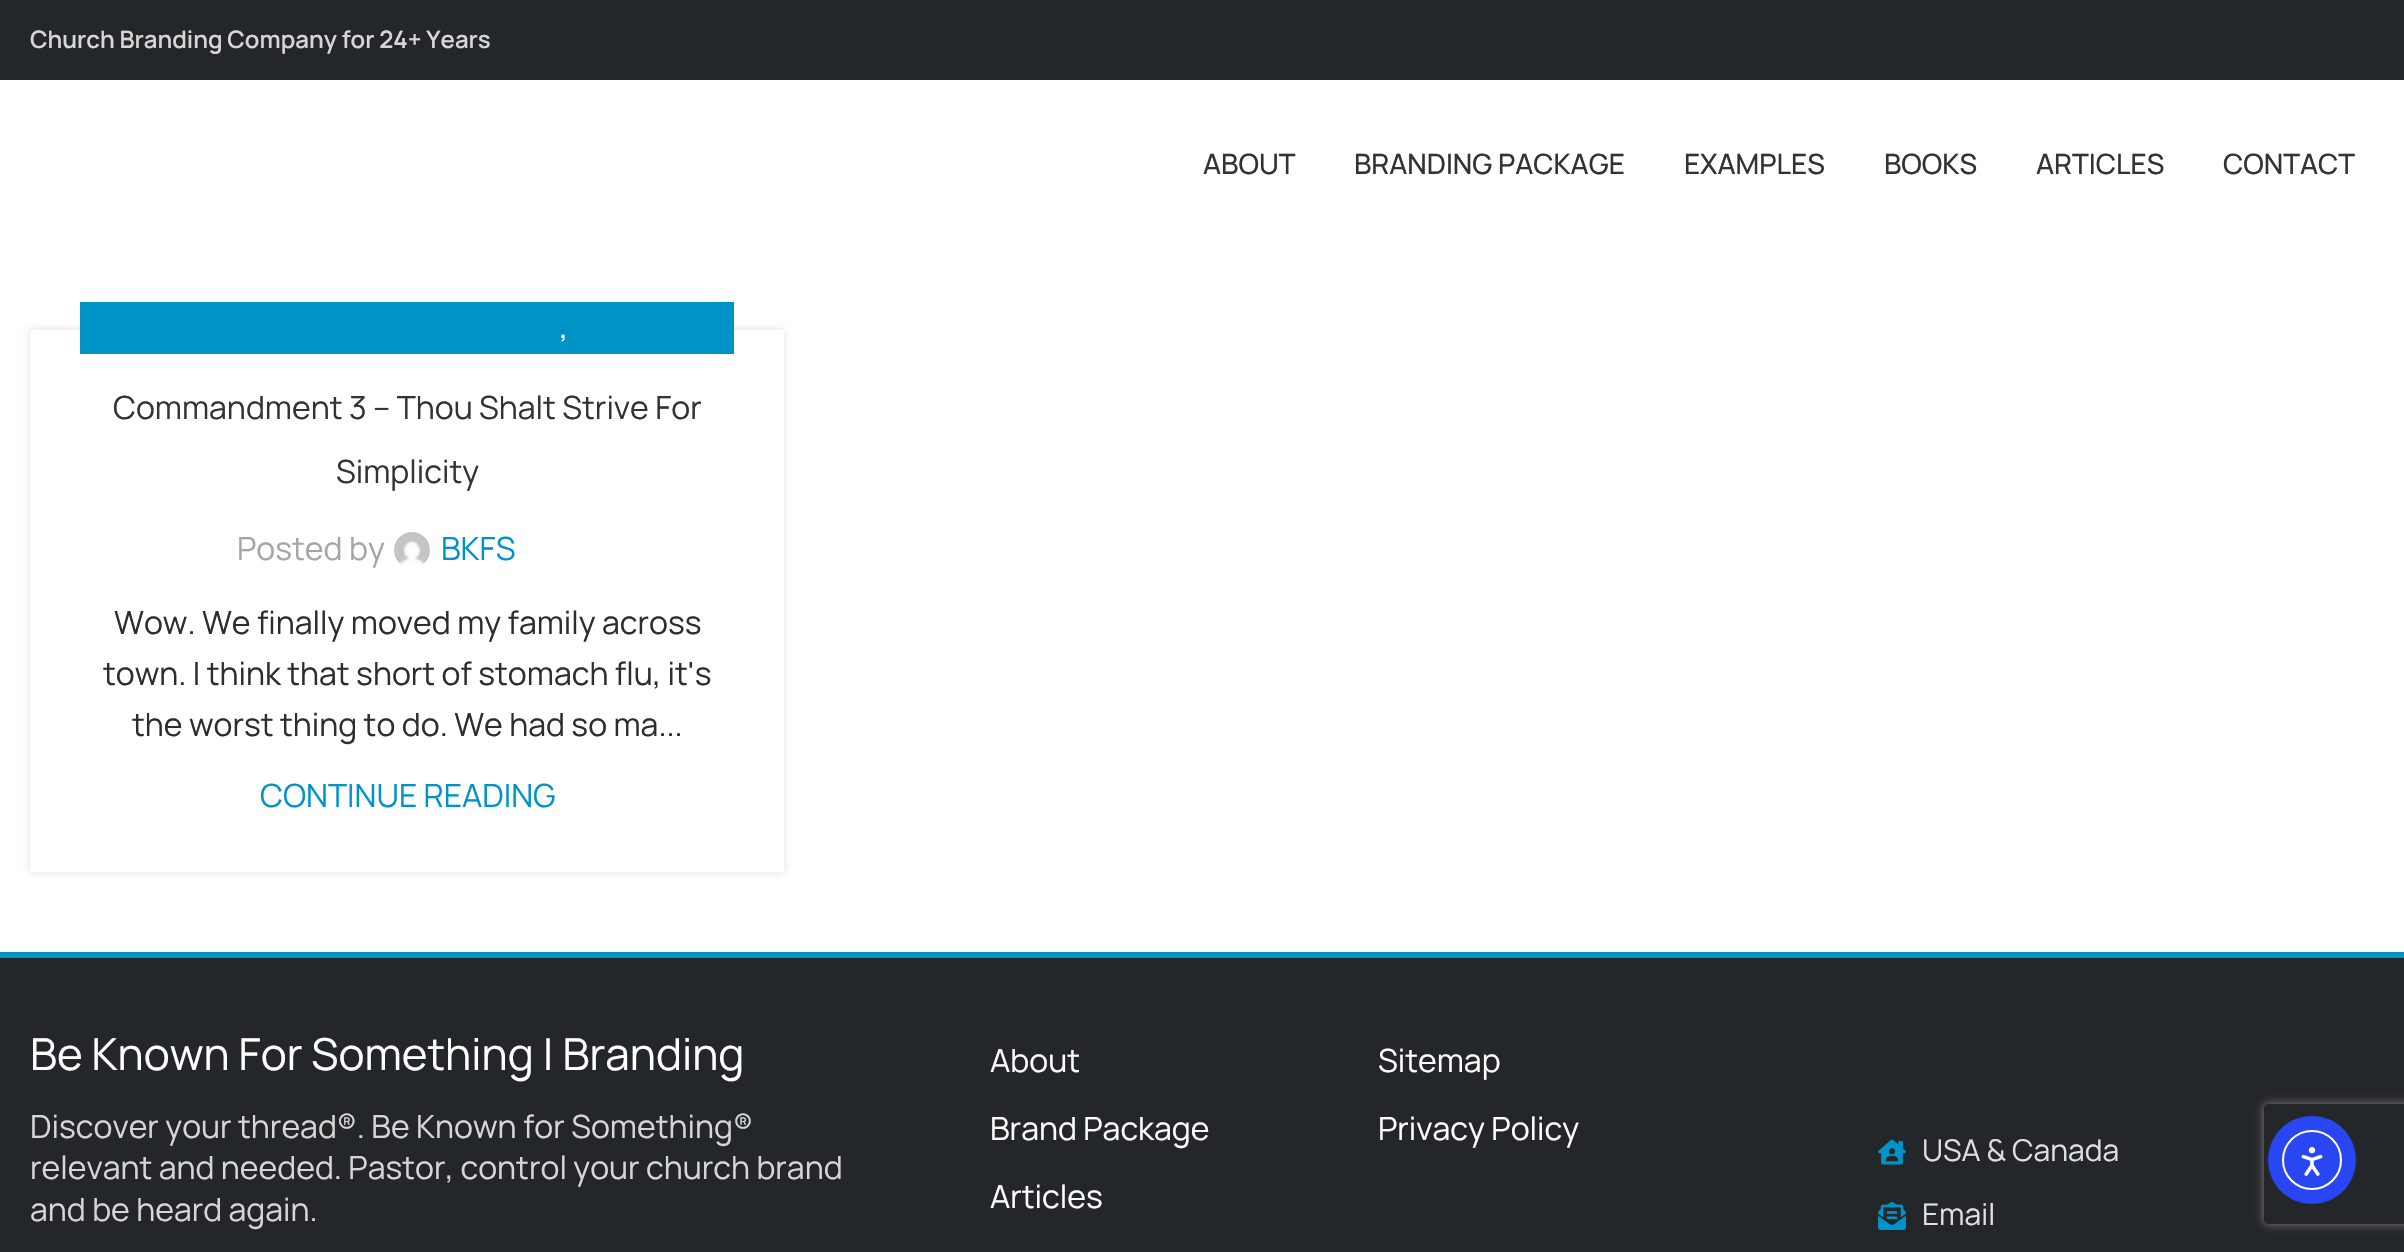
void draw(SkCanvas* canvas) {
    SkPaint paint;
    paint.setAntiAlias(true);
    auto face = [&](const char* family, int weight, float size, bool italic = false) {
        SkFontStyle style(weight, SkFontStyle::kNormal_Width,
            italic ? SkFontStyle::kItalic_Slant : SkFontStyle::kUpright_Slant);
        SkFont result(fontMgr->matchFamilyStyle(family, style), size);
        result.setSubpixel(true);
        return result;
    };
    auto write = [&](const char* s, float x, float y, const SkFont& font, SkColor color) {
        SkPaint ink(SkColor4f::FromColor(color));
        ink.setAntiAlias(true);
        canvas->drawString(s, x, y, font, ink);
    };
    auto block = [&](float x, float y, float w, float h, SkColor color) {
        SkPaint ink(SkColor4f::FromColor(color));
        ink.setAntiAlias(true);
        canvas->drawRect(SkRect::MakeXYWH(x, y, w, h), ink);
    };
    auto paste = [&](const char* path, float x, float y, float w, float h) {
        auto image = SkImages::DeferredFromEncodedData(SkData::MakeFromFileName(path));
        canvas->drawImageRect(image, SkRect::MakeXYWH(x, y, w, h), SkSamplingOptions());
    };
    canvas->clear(SK_ColorWHITE);
    block(0, 0, 2404, 80, SkColorSetRGB(36, 39, 42));
    auto kFont1 = face("Manrope", 600, 24);
    write("Church Branding Company for 24+ Years", 30, 48, kFont1, SkColorSetRGB(214, 214, 214));
    auto kFont2 = face("Manrope", 500, 28);
    write("ABOUT", 1203, 174, kFont2, SkColorSetRGB(51, 51, 51));
    write("BRANDING PACKAGE", 1354, 174, kFont2, SkColorSetRGB(51, 51, 51));
    write("EXAMPLES", 1684, 174, kFont2, SkColorSetRGB(51, 51, 51));
    write("BOOKS", 1884, 174, kFont2, SkColorSetRGB(51, 51, 51));
    write("ARTICLES", 2036, 174, kFont2, SkColorSetRGB(51, 51, 51));
    write("CONTACT", 2223, 174, kFont2, SkColorSetRGB(51, 51, 51));
    canvas->save();
    canvas->clipPath(SkPathBuilder(SkPathFillType::kEvenOdd).moveTo(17, 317).lineTo(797, 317).lineTo(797, 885).lineTo(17, 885).close().moveTo(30, 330).lineTo(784, 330).lineTo(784, 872).lineTo(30, 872).close().detach(), true);
    paint.setColor(SkColorSetARGB(31, 0, 0, 0));
    paint.setMaskFilter(SkMaskFilter::MakeBlur(kNormal_SkBlurStyle, 4));
    canvas->drawRect(SkRect::MakeXYWH(30, 330, 754, 542), paint);
    paint.setMaskFilter(nullptr);
    canvas->restore();
    block(80, 302, 654, 52, SkColorSetRGB(0, 147, 200));
    auto kFont3 = face("Manrope", 600, 26);
    write(",", 560, 338, kFont3, SK_ColorWHITE);
    auto kFont4 = face("Manrope", 400, 32);
    write("Commandment 3 – Thou Shalt Strive For", 113, 419, kFont4, SkColorSetRGB(51, 51, 51));
    write("Simplicity", 336, 483, kFont4, SkColorSetRGB(51, 51, 51));
    write("Posted by", 237, 560, kFont4, SkColorSetRGB(165, 165, 165));
    paste("pic1.png", 394, 532, 36, 33);
    write("BKFS", 441, 560, kFont4, SkColorSetRGB(0, 147, 201));
    write("Wow. We finally moved my family across", 114, 634, kFont4, SkColorSetRGB(45, 45, 45));
    write("town. I think that short of stomach flu, it's", 103, 685, kFont4, SkColorSetRGB(45, 45, 45));
    write("the worst thing to do. We had so ma...", 132, 736, kFont4, SkColorSetRGB(45, 45, 45));
    write("CONTINUE READING", 260, 807, kFont4, SkColorSetRGB(0, 147, 201));
    block(0, 958, 2404, 294, SkColorSetRGB(36, 39, 42));
    block(0, 952, 2404, 6, SkColorSetRGB(0, 147, 201));
    auto kFont5 = face("Manrope", 400, 44);
    write("Be Known For Something | Branding", 30, 1070, kFont5, SK_ColorWHITE);
    write("Discover your thread®. Be Known for Something®", 30, 1138, kFont4, SkColorSetRGB(214, 214, 214));
    write("relevant and needed. Pastor, control your church brand", 30, 1179, kFont4, SkColorSetRGB(214, 214, 214));
    write("and be heard again.", 30, 1221, kFont4, SkColorSetRGB(214, 214, 214));
    write("About", 990, 1072, kFont4, SK_ColorWHITE);
    write("Brand Package", 990, 1140, kFont4, SK_ColorWHITE);
    write("Articles", 990, 1208, kFont4, SK_ColorWHITE);
    write("Sitemap", 1378, 1072, kFont4, SK_ColorWHITE);
    write("Privacy Policy", 1378, 1140, kFont4, SK_ColorWHITE);
    paste("pic2.png", 1878, 1139, 28, 26);
    auto kFont6 = face("Manrope", 400, 30);
    write("USA & Canada", 1922, 1161, kFont6, SkColorSetRGB(223, 223, 223));
    paste("pic3.png", 1878, 1202, 28, 28);
    write("Email", 1922, 1225, kFont6, SkColorSetRGB(223, 223, 223));
    canvas->save();
    canvas->clipPath(SkPathBuilder(SkPathFillType::kEvenOdd).moveTo(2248, 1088).lineTo(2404, 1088).lineTo(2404, 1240).lineTo(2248, 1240).close().moveTo(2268, 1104).lineTo(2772, 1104).cubicTo(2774, 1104, 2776, 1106, 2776, 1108).lineTo(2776, 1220).cubicTo(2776, 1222, 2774, 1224, 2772, 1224).lineTo(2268, 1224).cubicTo(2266, 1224, 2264, 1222, 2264, 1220).lineTo(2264, 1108).cubicTo(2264, 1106, 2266, 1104, 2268, 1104).close().detach(), true);
    paint.setColor(SkColorSetRGB(128, 128, 128));
    paint.setMaskFilter(SkMaskFilter::MakeBlur(kNormal_SkBlurStyle, 5));
    canvas->drawRoundRect(SkRect::MakeXYWH(2264, 1104, 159, 120), 4, 4, paint);
    paint.setMaskFilter(nullptr);
    canvas->restore();
    paint.setColor(SkColorSetRGB(40, 71, 243));
    canvas->drawCircle(2312, 1160, 44, paint);
    paint.setStyle(SkPaint::kStroke_Style);
    paint.setStrokeWidth(2);
    paint.setColor(SK_ColorWHITE);
    canvas->drawCircle(2312, 1160, 29, paint);
    paste("pic4.png", 2301, 1147, 22, 29);
}
